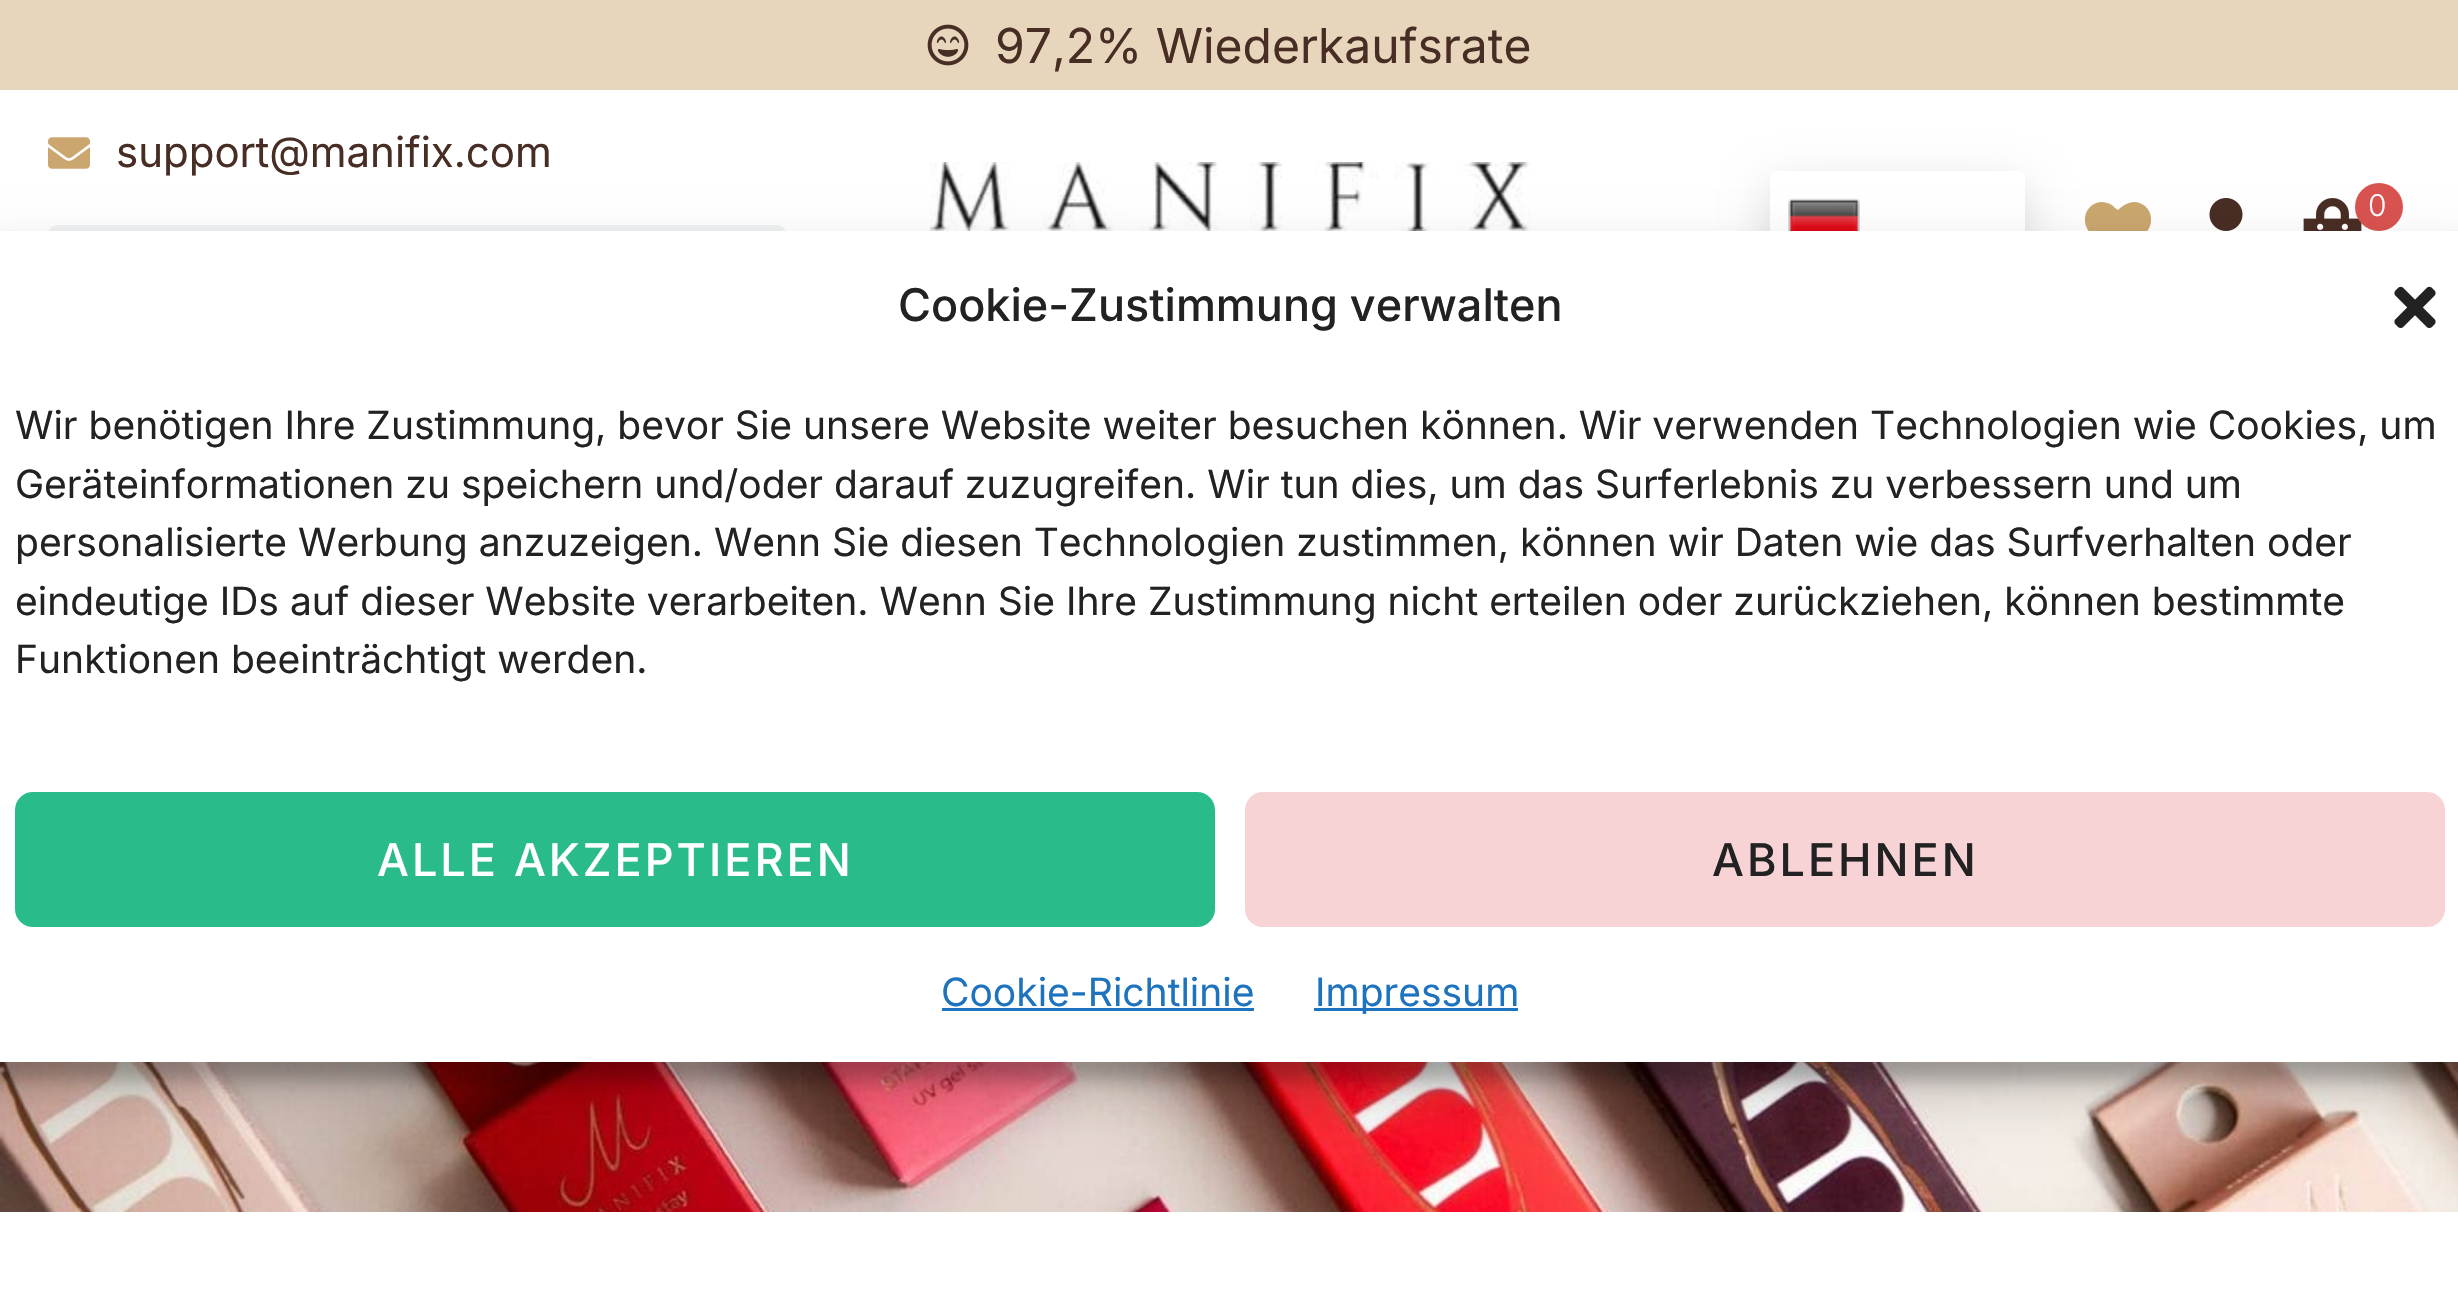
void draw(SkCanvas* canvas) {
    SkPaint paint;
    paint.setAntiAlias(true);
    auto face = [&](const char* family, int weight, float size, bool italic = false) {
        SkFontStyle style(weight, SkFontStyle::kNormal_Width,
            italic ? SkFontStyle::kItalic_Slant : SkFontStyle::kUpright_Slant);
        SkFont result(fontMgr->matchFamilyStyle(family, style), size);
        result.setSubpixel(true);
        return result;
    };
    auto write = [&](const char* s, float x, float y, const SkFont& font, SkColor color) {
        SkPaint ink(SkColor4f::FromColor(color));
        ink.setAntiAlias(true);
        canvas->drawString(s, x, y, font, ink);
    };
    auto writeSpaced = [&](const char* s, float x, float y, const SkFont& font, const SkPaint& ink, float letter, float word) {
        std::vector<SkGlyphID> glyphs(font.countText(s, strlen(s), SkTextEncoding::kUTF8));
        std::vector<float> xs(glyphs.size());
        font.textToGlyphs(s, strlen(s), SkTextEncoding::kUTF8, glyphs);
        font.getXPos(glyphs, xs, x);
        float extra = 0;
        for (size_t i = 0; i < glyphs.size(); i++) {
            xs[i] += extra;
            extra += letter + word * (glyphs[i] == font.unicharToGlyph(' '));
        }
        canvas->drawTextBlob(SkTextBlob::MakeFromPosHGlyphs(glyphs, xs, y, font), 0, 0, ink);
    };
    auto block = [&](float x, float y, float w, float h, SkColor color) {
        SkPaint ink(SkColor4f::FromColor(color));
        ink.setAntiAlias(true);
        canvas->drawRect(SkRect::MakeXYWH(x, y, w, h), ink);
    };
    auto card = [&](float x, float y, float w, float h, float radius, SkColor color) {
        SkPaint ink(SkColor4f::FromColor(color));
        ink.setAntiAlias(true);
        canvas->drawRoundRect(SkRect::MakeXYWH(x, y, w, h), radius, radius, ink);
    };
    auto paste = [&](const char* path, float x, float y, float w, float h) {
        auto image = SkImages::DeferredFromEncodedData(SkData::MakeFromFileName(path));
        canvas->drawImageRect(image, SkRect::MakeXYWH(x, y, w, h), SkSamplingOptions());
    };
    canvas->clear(SK_ColorWHITE);
    block(0, 0, 2458, 90, SkColorSetRGB(231, 214, 188));
    paste("pic1.png", 927, 24, 42, 42);
    auto kFont1 = face("Inter", 400, 48);
    write("97,2% Wiederkaufsrate", 995, 63, kFont1, SkColorSetRGB(72, 45, 36));
    paste("pic2.png", 48, 137, 42, 32);
    auto kFont2 = face("Inter", 400, 42);
    write("support@manifix.com", 116, 167, kFont2, SkColorSetRGB(72, 45, 36));
    card(48, 225, 738, 111, 9, SkColorSetRGB(241, 242, 243));
    paste("pic3.png", 930, 162, 600, 69);
    paint.setColor(SkColorSetARGB(38, 0, 0, 0));
    paint.setMaskFilter(SkMaskFilter::MakeBlur(kNormal_SkBlurStyle, 22.5f));
    canvas->drawRoundRect(SkRect::MakeXYWH(1770, 186, 255, 108), 6, 6, paint);
    paint.setMaskFilter(nullptr);
    card(1770, 171, 255, 108, 6, SK_ColorWHITE);
    paste("pic4.png", 1788, 198, 72, 33);
    canvas->save();
    canvas->clipRect(SkRect::MakeXYWH(2085, 198, 66, 66));
    paint.setColor(SkColorSetRGB(203, 167, 111));
    canvas->drawPath(SkPathBuilder().moveTo(2145, 206).cubicTo(2135, 198, 2125, 203, 2118, 210).lineTo(2115, 208).cubicTo(2109, 201, 2098, 200, 2091, 206).cubicTo(2083, 213, 2083, 225, 2090, 233).lineTo(2115, 259).cubicTo(2117, 260, 2119, 260, 2121, 259).lineTo(2146, 233).cubicTo(2153, 225, 2153, 213, 2145, 206).close().detach(), paint);
    canvas->restore();
    paste("pic5.png", 2209, 198, 34, 33);
    paste("pic6.png", 2303, 198, 59, 33);
    paint.setColor(SkColorSetRGB(217, 83, 79));
    canvas->drawCircle(2379, 207, 24, paint);
    auto kFont3 = face("Inter", 300, 30);
    paint.setColor(SK_ColorWHITE);
    writeSpaced("0", 2368, 216, kFont3, paint, 3, 0);
    paste("pic8.png", 0, 1062, 2458, 150);
    paint.setColor(SkColorSetARGB(59, 0, 0, 0));
    paint.setMaskFilter(SkMaskFilter::MakeBlur(kNormal_SkBlurStyle, 9));
    canvas->drawRoundRect(SkRect::MakeXYWH(-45, 249, 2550, 831), 36, 36, paint);
    paint.setMaskFilter(nullptr);
    paint.setColor(SkColorSetARGB(48, 0, 0, 0));
    paint.setMaskFilter(SkMaskFilter::MakeBlur(kNormal_SkBlurStyle, 30));
    canvas->drawRoundRect(SkRect::MakeXYWH(-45, 261, 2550, 831), 36, 36, paint);
    paint.setMaskFilter(nullptr);
    block(0, 231, 2458, 831, SK_ColorWHITE);
    auto kFont4 = face("Inter", 500, 45);
    write("Cookie-Zustimmung verwalten", 898, 321, kFont4, SkColorSetRGB(34, 34, 34));
    paste("pic7.png", 2394, 286, 42, 42);
    auto kFont5 = face("Inter", 400, 39);
    write("Wir benötigen Ihre Zustimmung, bevor Sie unsere Website weiter besuchen können. Wir verwenden Technologien wie Cookies, um", 15, 439, kFont5, SkColorSetRGB(34, 34, 34));
    write("Geräteinformationen zu speichern und/oder darauf zuzugreifen. Wir tun dies, um das Surferlebnis zu verbessern und um", 15, 498, kFont5, SkColorSetRGB(34, 34, 34));
    write("personalisierte Werbung anzuzeigen. Wenn Sie diesen Technologien zustimmen, können wir Daten wie das Surfverhalten oder", 15, 556, kFont5, SkColorSetRGB(34, 34, 34));
    write("eindeutige IDs auf dieser Website verarbeiten. Wenn Sie Ihre Zustimmung nicht erteilen oder zurückziehen, können bestimmte", 15, 615, kFont5, SkColorSetRGB(34, 34, 34));
    write("Funktionen beeinträchtigt werden.", 15, 673, kFont5, SkColorSetRGB(34, 34, 34));
    paint.setColor(SkColorSetRGB(42, 187, 139));
    canvas->drawRoundRect(SkRect::MakeXYWH(16.5f, 793.5f, 1197, 132), 16.5f, 16.5f, paint);
    paint.setStyle(SkPaint::kStroke_Style);
    paint.setStrokeWidth(3);
    canvas->drawRoundRect(SkRect::MakeXYWH(16.5f, 793.5f, 1197, 132), 16.5f, 16.5f, paint);
    paint.setStyle(SkPaint::kFill_Style);
    paint.setColor(SK_ColorWHITE);
    writeSpaced("ALLE AKZEPTIEREN", 377, 876, kFont4, paint, 3, 0);
    paint.setColor(SkColorSetRGB(247, 211, 214));
    canvas->drawRoundRect(SkRect::MakeXYWH(1246.5f, 793.5f, 1197, 132), 16.5f, 16.5f, paint);
    paint.setStyle(SkPaint::kStroke_Style);
    canvas->drawRoundRect(SkRect::MakeXYWH(1246.5f, 793.5f, 1197, 132), 16.5f, 16.5f, paint);
    paint.setStyle(SkPaint::kFill_Style);
    paint.setColor(SkColorSetRGB(34, 34, 34));
    writeSpaced("ABLEHNEN", 1712, 876, kFont4, paint, 3, 0);
    write("Cookie-Richtlinie", 941, 1006, kFont5, SkColorSetRGB(30, 115, 190));
    block(942, 1008, 312, 3, SkColorSetRGB(30, 115, 190));
    block(1314, 1008, 204, 3, SkColorSetRGB(30, 115, 190));
    write("Impressum", 1315, 1006, kFont5, SkColorSetRGB(30, 115, 190));
}
